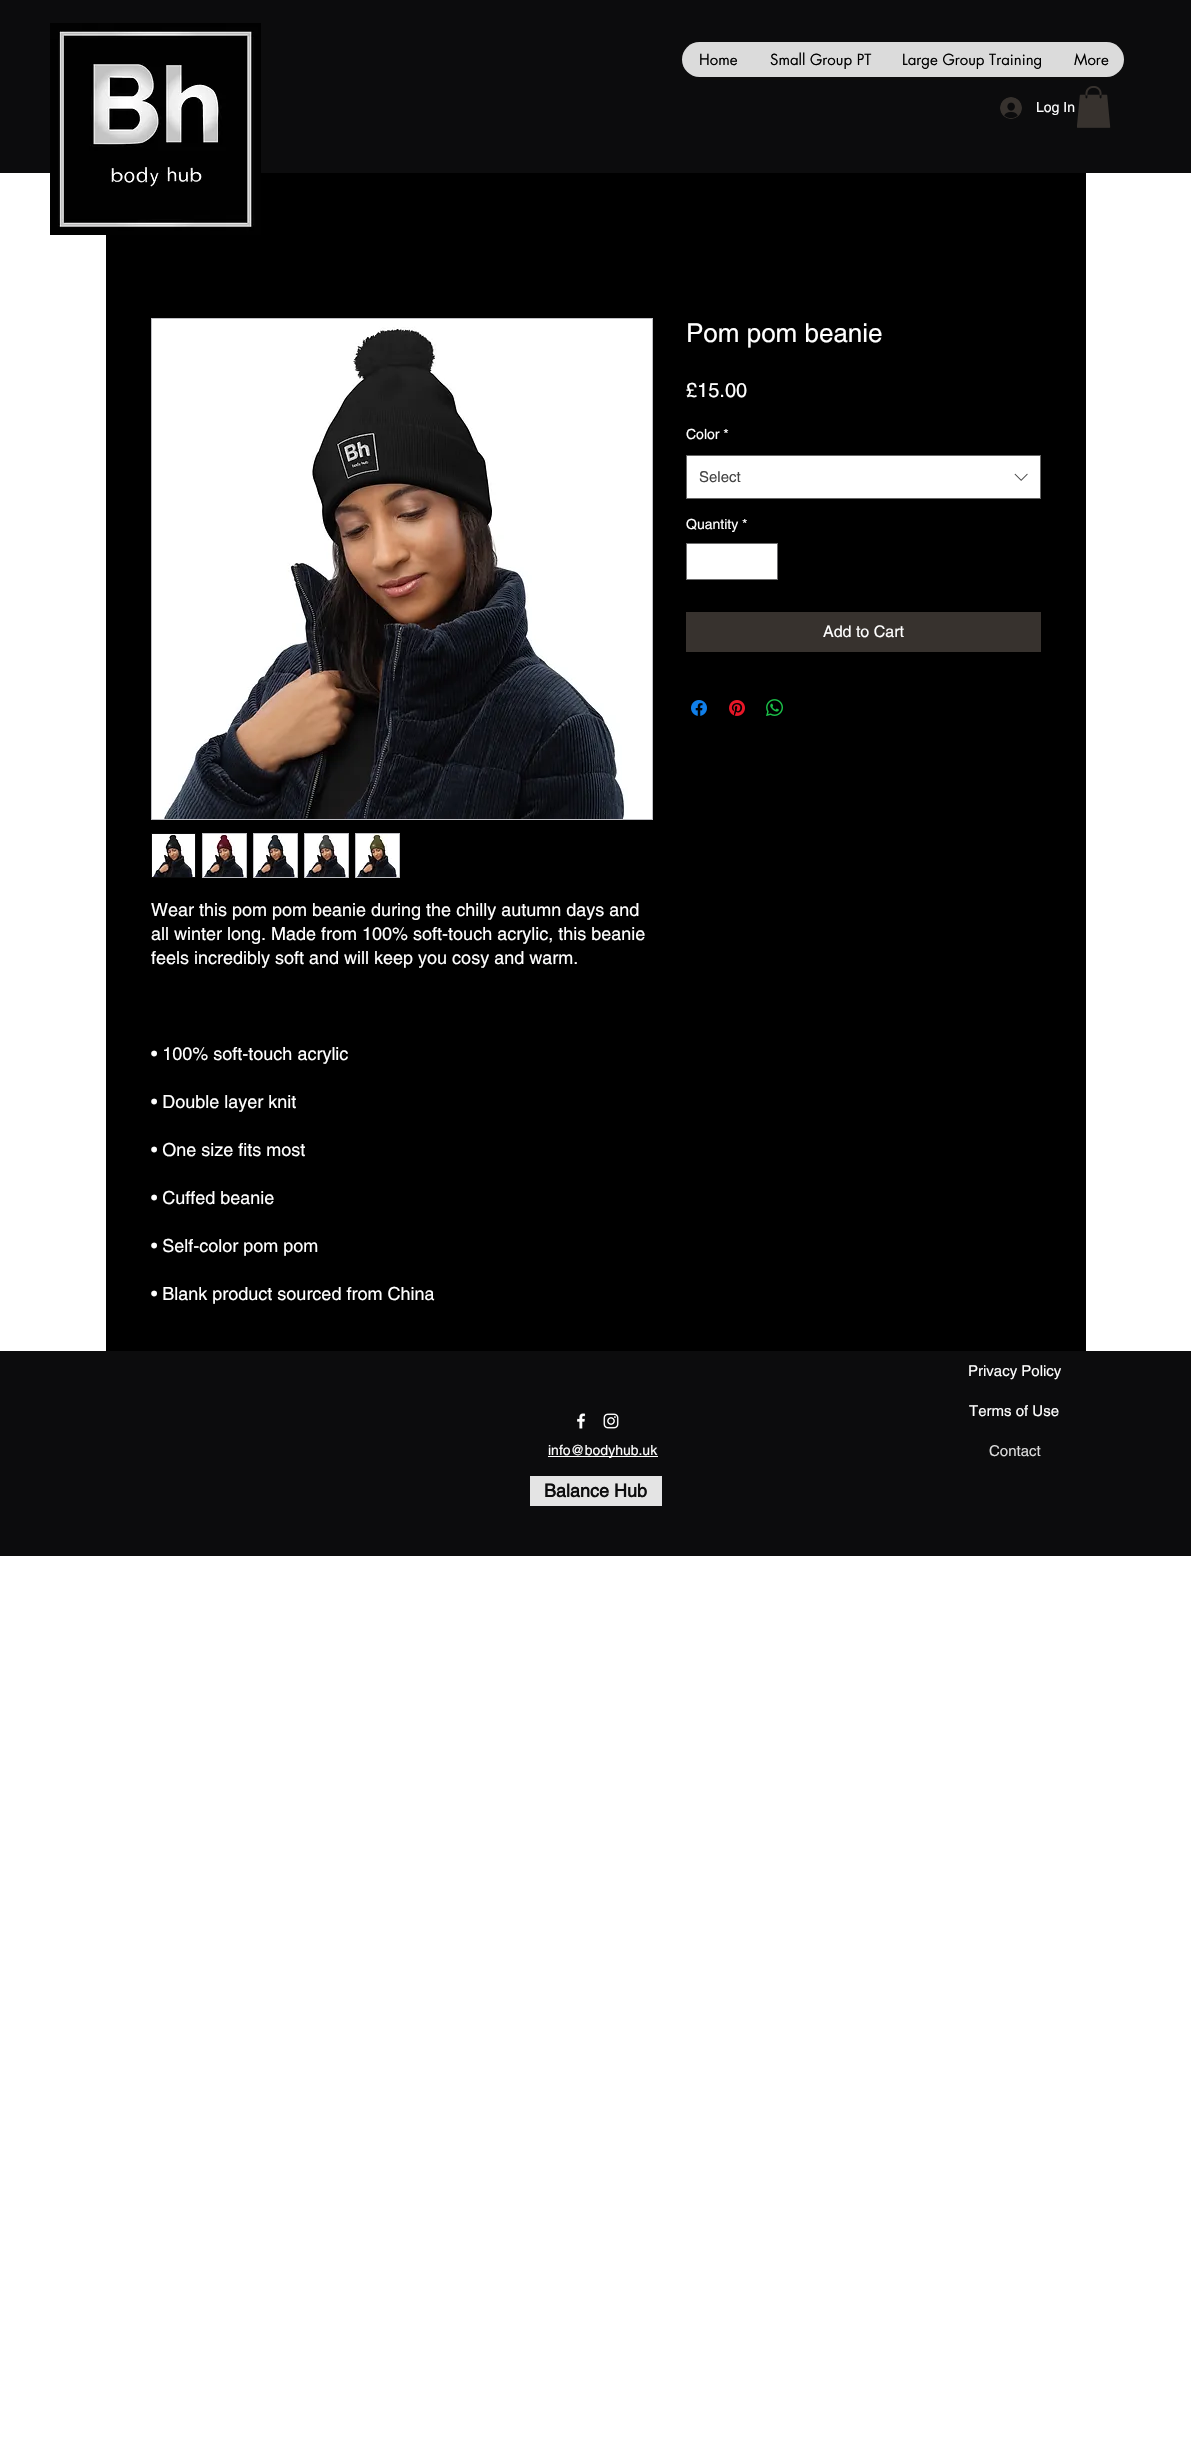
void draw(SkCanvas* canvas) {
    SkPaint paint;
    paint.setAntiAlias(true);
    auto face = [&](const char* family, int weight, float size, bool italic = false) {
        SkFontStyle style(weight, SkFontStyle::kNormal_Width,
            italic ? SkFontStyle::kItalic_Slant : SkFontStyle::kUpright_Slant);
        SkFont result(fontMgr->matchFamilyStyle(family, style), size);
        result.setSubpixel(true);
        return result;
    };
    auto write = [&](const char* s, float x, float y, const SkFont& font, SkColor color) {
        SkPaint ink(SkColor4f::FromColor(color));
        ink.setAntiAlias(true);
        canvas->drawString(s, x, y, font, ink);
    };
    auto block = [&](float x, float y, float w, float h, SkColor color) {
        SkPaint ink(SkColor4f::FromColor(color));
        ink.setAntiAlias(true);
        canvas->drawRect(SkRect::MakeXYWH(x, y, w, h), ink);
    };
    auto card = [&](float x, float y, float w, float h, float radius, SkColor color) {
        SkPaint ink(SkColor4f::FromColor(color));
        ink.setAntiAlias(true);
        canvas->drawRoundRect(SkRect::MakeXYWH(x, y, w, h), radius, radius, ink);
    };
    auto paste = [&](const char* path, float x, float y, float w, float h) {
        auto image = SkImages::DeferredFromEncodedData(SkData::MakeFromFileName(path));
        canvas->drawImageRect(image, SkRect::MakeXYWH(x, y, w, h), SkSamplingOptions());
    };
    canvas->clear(SK_ColorWHITE);
    block(0, 0, 1191, 173, SkColorSetRGB(12, 12, 13));
    block(106, 173, 980, 1178, SK_ColorBLACK);
    paste("pic1.png", 50, 23, 211, 212);
    card(682, 42, 442, 35, 17.5f, SkColorSetRGB(219, 219, 219));
    auto kFont1 = face("futura", 400, 15);
    write("Home", 699, 65, kFont1, SK_ColorBLACK);
    write("Small Group PT", 770, 65, kFont1, SK_ColorBLACK);
    write("Large Group Training", 902, 65, kFont1, SK_ColorBLACK);
    write("More", 1074, 65, kFont1, SK_ColorBLACK);
    paste("pic2.png", 1000, 97, 22, 22);
    auto kFont2 = face("helvetica", 400, 14);
    write("Log In", 1036, 112, kFont2, SK_ColorWHITE);
    paste("pic3.png", 1077, 86, 34, 42);
    auto kFont3 = face("helvetica", 400, 26);
    write("Pom pom beanie", 686, 342, kFont3, SK_ColorWHITE);
    auto kFont4 = face("helvetica", 400, 20);
    write("£15.00", 686, 397, kFont4, SK_ColorWHITE);
    write("Color *", 686, 439, kFont2, SK_ColorWHITE);
    paint.setColor(SK_ColorWHITE);
    canvas->drawRect(SkRect::MakeXYWH(686.5f, 455.5f, 354, 43), paint);
    paint.setStyle(SkPaint::kStroke_Style);
    paint.setStrokeWidth(1);
    paint.setColor(SkColorSetRGB(102, 102, 102));
    canvas->drawRect(SkRect::MakeXYWH(686.5f, 455.5f, 354, 43), paint);
    auto kFont5 = face("helvetica", 400, 15);
    write("Select", 699, 482, kFont5, SkColorSetRGB(68, 68, 68));
    paste("pic4.png", 1014, 473, 14, 8);
    write("Quantity *", 686, 529, kFont2, SK_ColorWHITE);
    paint.setStyle(SkPaint::kFill_Style);
    paint.setColor(SK_ColorWHITE);
    canvas->drawRect(SkRect::MakeXYWH(686.5f, 543.5f, 91, 36), paint);
    paint.setStyle(SkPaint::kStroke_Style);
    paint.setColor(SkColorSetRGB(109, 109, 110));
    canvas->drawRect(SkRect::MakeXYWH(686.5f, 543.5f, 91, 36), paint);
    block(686, 612, 355, 40, SkColorSetRGB(55, 50, 46));
    auto kFont6 = face("helvetica", 400, 16);
    write("Add to Cart", 823, 637, kFont6, SK_ColorWHITE);
    paste("pic5.png", 691, 700, 16, 16);
    paste("pic6.png", 729, 700, 16, 16);
    paste("pic7.png", 766, 699, 17, 17);
    paint.setColor(SkColorSetRGB(192, 192, 197));
    canvas->drawRect(SkRect::MakeXYWH(151.5f, 318.5f, 501, 501), paint);
    paste("pic8.png", 152, 319, 500, 500);
    paint.setColor(SkColorSetRGB(12, 12, 13));
    canvas->drawRect(SkRect::MakeXYWH(151.5f, 833.5f, 44, 44), paint);
    paste("pic9.png", 152, 834, 43, 43);
    block(202, 833, 45, 45, SkColorSetRGB(192, 192, 197));
    paste("pic10.png", 203, 834, 43, 43);
    block(253, 833, 45, 45, SkColorSetRGB(192, 192, 197));
    paste("pic11.png", 254, 834, 43, 43);
    block(304, 833, 45, 45, SkColorSetRGB(192, 192, 197));
    paste("pic12.png", 305, 834, 43, 43);
    block(355, 833, 45, 45, SkColorSetRGB(192, 192, 197));
    paste("pic13.png", 356, 834, 43, 43);
    auto kFont7 = face("helvetica", 400, 18);
    write("Wear this pom pom beanie during the chilly autumn days and", 151, 916, kFont7, SK_ColorWHITE);
    write("all winter long. Made from 100% soft-touch acrylic, this beanie", 151, 940, kFont7, SK_ColorWHITE);
    write("feels incredibly soft and will keep you cosy and warm.", 151, 964, kFont7, SK_ColorWHITE);
    write("• 100% soft-touch acrylic", 151, 1060, kFont7, SK_ColorWHITE);
    write("• Double layer knit", 151, 1108, kFont7, SK_ColorWHITE);
    write("• One size fits most", 151, 1156, kFont7, SK_ColorWHITE);
    write("• Cuffed beanie", 151, 1204, kFont7, SK_ColorWHITE);
    write("• Self-color pom pom", 151, 1252, kFont7, SK_ColorWHITE);
    write("• Blank product sourced from China", 151, 1300, kFont7, SK_ColorWHITE);
    block(0, 1351, 1191, 205, SkColorSetRGB(12, 12, 13));
    write("Privacy Policy", 968, 1376, kFont5, SK_ColorWHITE);
    write("Terms of Use", 969, 1416, kFont5, SK_ColorWHITE);
    paste("pic14.png", 577, 1413, 9, 16);
    paste("pic15.png", 603, 1413, 16, 16);
    block(548, 1456, 110, 1, SK_ColorWHITE);
    write("info@bodyhub.uk", 548, 1455, kFont2, SK_ColorWHITE);
    write("Contact", 989, 1456, kFont5, SkColorSetRGB(219, 219, 219));
    block(530, 1476, 132, 30, SkColorSetRGB(228, 228, 228));
    auto kFont8 = face("helvetica", 700, 18);
    write("Balance Hub", 544, 1497, kFont8, SkColorSetRGB(12, 12, 13));
}
